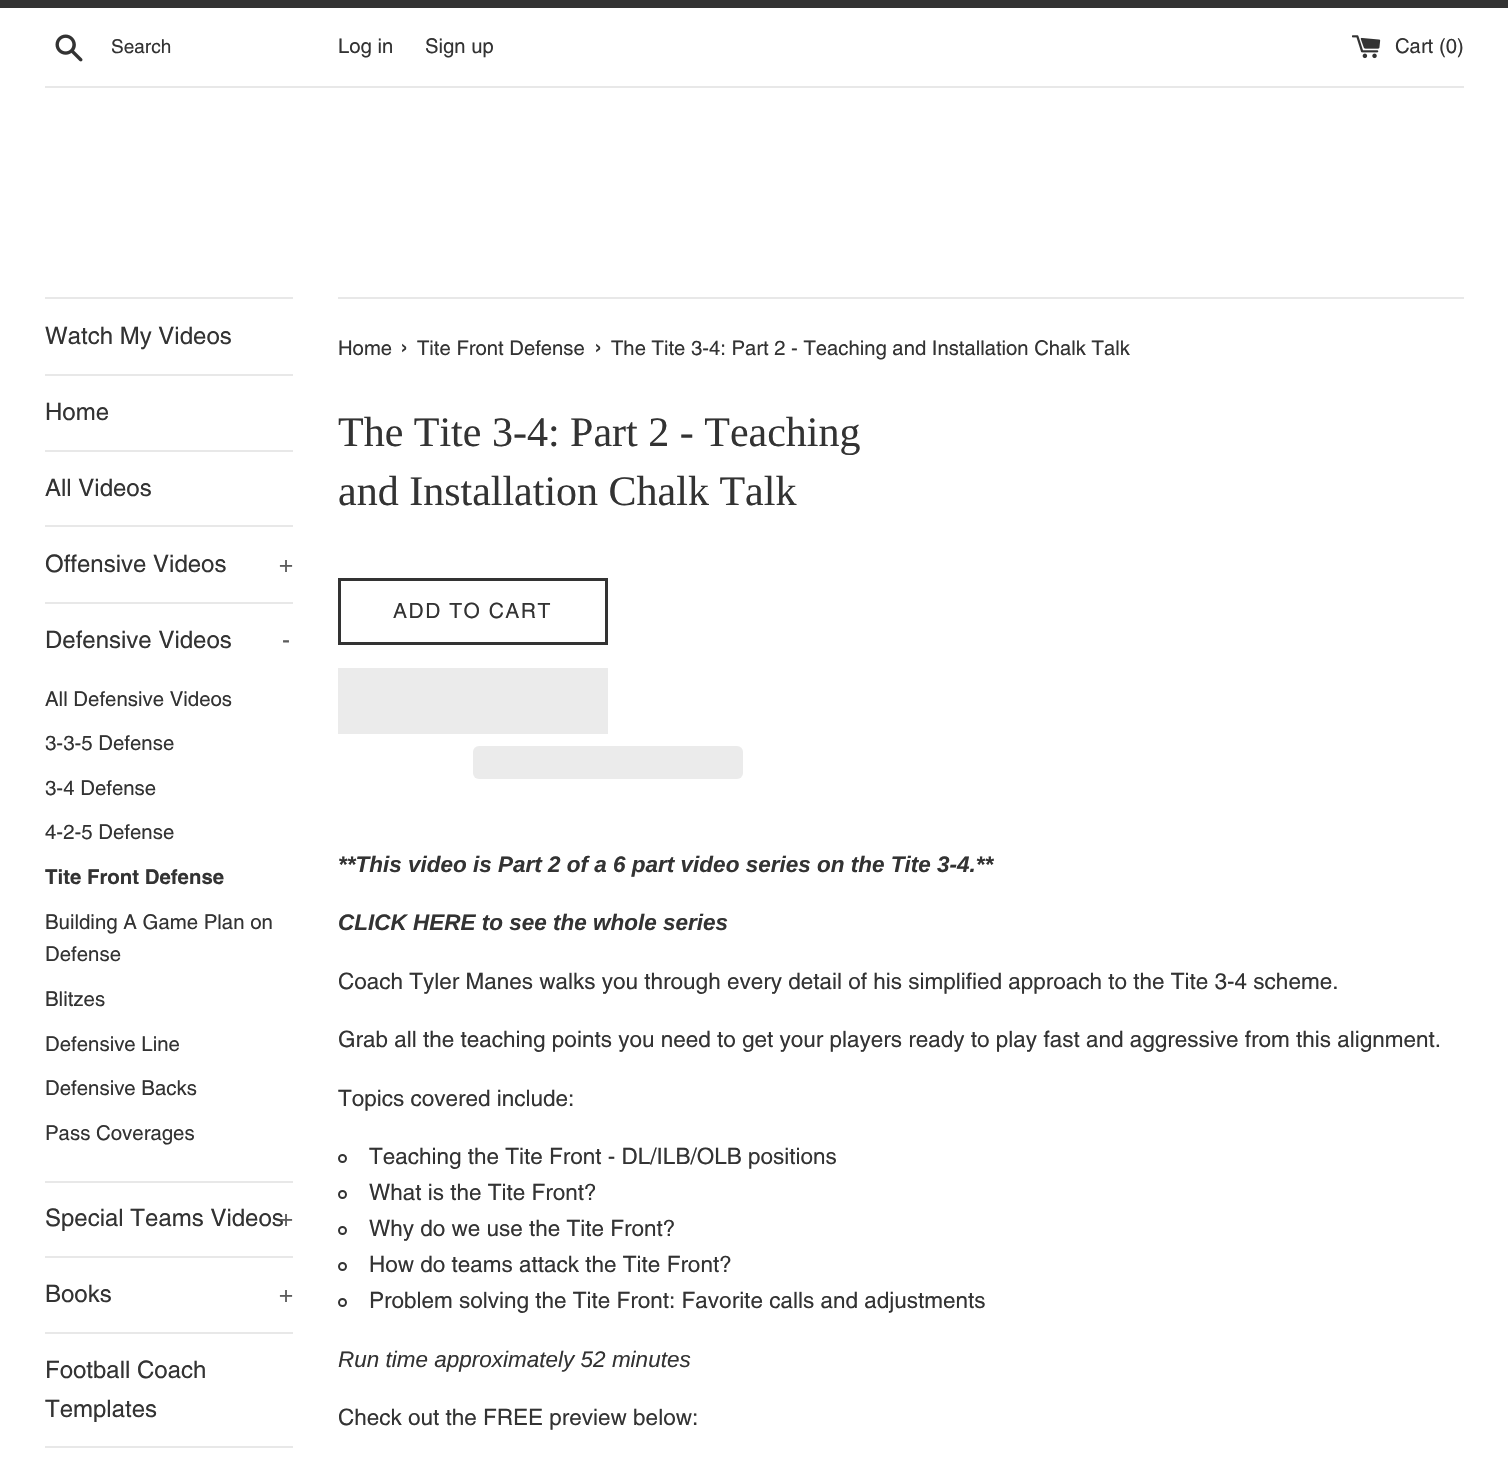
void draw(SkCanvas* canvas) {
    SkPaint paint;
    paint.setAntiAlias(true);
    auto face = [&](const char* family, int weight, float size, bool italic = false) {
        SkFontStyle style(weight, SkFontStyle::kNormal_Width,
            italic ? SkFontStyle::kItalic_Slant : SkFontStyle::kUpright_Slant);
        SkFont result(fontMgr->matchFamilyStyle(family, style), size);
        result.setSubpixel(true);
        return result;
    };
    auto write = [&](const char* s, float x, float y, const SkFont& font, SkColor color) {
        SkPaint ink(SkColor4f::FromColor(color));
        ink.setAntiAlias(true);
        canvas->drawString(s, x, y, font, ink);
    };
    auto writeSpaced = [&](const char* s, float x, float y, const SkFont& font, const SkPaint& ink, float letter, float word) {
        std::vector<SkGlyphID> glyphs(font.countText(s, strlen(s), SkTextEncoding::kUTF8));
        std::vector<float> xs(glyphs.size());
        font.textToGlyphs(s, strlen(s), SkTextEncoding::kUTF8, glyphs);
        font.getXPos(glyphs, xs, x);
        float extra = 0;
        for (size_t i = 0; i < glyphs.size(); i++) {
            xs[i] += extra;
            extra += letter + word * (glyphs[i] == font.unicharToGlyph(' '));
        }
        canvas->drawTextBlob(SkTextBlob::MakeFromPosHGlyphs(glyphs, xs, y, font), 0, 0, ink);
    };
    auto block = [&](float x, float y, float w, float h, SkColor color) {
        SkPaint ink(SkColor4f::FromColor(color));
        ink.setAntiAlias(true);
        canvas->drawRect(SkRect::MakeXYWH(x, y, w, h), ink);
    };
    auto card = [&](float x, float y, float w, float h, float radius, SkColor color) {
        SkPaint ink(SkColor4f::FromColor(color));
        ink.setAntiAlias(true);
        canvas->drawRoundRect(SkRect::MakeXYWH(x, y, w, h), radius, radius, ink);
    };
    auto paste = [&](const char* path, float x, float y, float w, float h) {
        auto image = SkImages::DeferredFromEncodedData(SkData::MakeFromFileName(path));
        canvas->drawImageRect(image, SkRect::MakeXYWH(x, y, w, h), SkSamplingOptions());
    };
    canvas->clear(SK_ColorWHITE);
    block(0, 0, 1508, 8, SkColorSetRGB(51, 51, 51));
    paste("pic1.png", 55, 34, 28, 28);
    auto kFont1 = face("Helvetica", 400, 19);
    write("Search", 111, 53, kFont1, SkColorSetRGB(51, 51, 51));
    auto kFont2 = face("Helvetica", 400, 20.25f);
    write("Log in", 338, 53, kFont2, SkColorSetRGB(51, 51, 51));
    write("Sign up", 425, 53, kFont2, SkColorSetRGB(51, 51, 51));
    paste("pic2.png", 1352, 35, 29, 24);
    write("Cart (0)", 1395, 53, kFont2, SkColorSetRGB(51, 51, 51));
    block(45, 86, 1419, 2, SkColorSetRGB(232, 232, 232));
    block(45, 297, 248, 2, SkColorSetRGB(232, 232, 232));
    block(45, 374, 248, 2, SkColorSetRGB(232, 232, 232));
    auto kFont3 = face("Helvetica", 400, 24);
    write("Watch My Videos", 45, 344, kFont3, SkColorSetRGB(51, 51, 51));
    block(45, 450, 248, 2, SkColorSetRGB(232, 232, 232));
    write("Home", 45, 420, kFont3, SkColorSetRGB(51, 51, 51));
    block(45, 525, 248, 2, SkColorSetRGB(232, 232, 232));
    write("All Videos", 45, 496, kFont3, SkColorSetRGB(51, 51, 51));
    block(45, 602, 248, 2, SkColorSetRGB(232, 232, 232));
    write("Offensive Videos", 45, 572, kFont3, SkColorSetRGB(51, 51, 51));
    write("+", 279, 572, kFont3, SkColorSetRGB(92, 92, 92));
    block(45, 1181, 248, 2, SkColorSetRGB(232, 232, 232));
    write("Defensive Videos", 45, 648, kFont3, SkColorSetRGB(51, 51, 51));
    write("-", 282, 648, kFont3, SkColorSetRGB(92, 92, 92));
    auto kFont4 = face("Helvetica", 400, 20.4f);
    write("All Defensive Videos", 45, 706, kFont4, SkColorSetRGB(51, 51, 51));
    write("3-3-5 Defense", 45, 750, kFont4, SkColorSetRGB(51, 51, 51));
    write("3-4 Defense", 45, 795, kFont4, SkColorSetRGB(51, 51, 51));
    write("4-2-5 Defense", 45, 839, kFont4, SkColorSetRGB(51, 51, 51));
    auto kFont5 = face("Helvetica", 700, 20.4f);
    write("Tite Front Defense", 45, 884, kFont5, SkColorSetRGB(51, 51, 51));
    write("Building A Game Plan on", 45, 929, kFont4, SkColorSetRGB(51, 51, 51));
    write("Defense", 45, 961, kFont4, SkColorSetRGB(51, 51, 51));
    write("Blitzes", 45, 1006, kFont4, SkColorSetRGB(51, 51, 51));
    write("Defensive Line", 45, 1051, kFont4, SkColorSetRGB(51, 51, 51));
    write("Defensive Backs", 45, 1095, kFont4, SkColorSetRGB(51, 51, 51));
    write("Pass Coverages", 45, 1140, kFont4, SkColorSetRGB(51, 51, 51));
    block(45, 1256, 248, 2, SkColorSetRGB(232, 232, 232));
    write("Special Teams Videos", 45, 1226, kFont3, SkColorSetRGB(51, 51, 51));
    write("+", 279, 1226, kFont3, SkColorSetRGB(92, 92, 92));
    block(45, 1332, 248, 2, SkColorSetRGB(232, 232, 232));
    write("Books", 45, 1302, kFont3, SkColorSetRGB(51, 51, 51));
    write("+", 279, 1302, kFont3, SkColorSetRGB(92, 92, 92));
    block(45, 1446, 248, 2, SkColorSetRGB(232, 232, 232));
    write("Football Coach", 45, 1378, kFont3, SkColorSetRGB(51, 51, 51));
    write("Templates", 45, 1417, kFont3, SkColorSetRGB(51, 51, 51));
    block(338, 297, 1126, 2, SkColorSetRGB(232, 232, 232));
    write("Home", 338, 355, kFont2, SkColorSetRGB(51, 51, 51));
    auto kFont6 = face("Helvetica", 400, 25);
    write("›", 400, 355, kFont6, SkColorSetRGB(51, 51, 51));
    write("Tite Front Defense", 417, 355, kFont2, SkColorSetRGB(51, 51, 51));
    write("›", 594, 355, kFont6, SkColorSetRGB(51, 51, 51));
    write("The Tite 3-4: Part 2 - Teaching and Installation Chalk Talk", 611, 355, kFont2, SkColorSetRGB(51, 51, 51));
    auto kFont7 = face("Liberation Serif", 400, 42);
    write("The Tite 3-4: Part 2 - Teaching", 338, 446, kFont7, SkColorSetRGB(51, 51, 51));
    write("and Installation Chalk Talk", 338, 505, kFont7, SkColorSetRGB(51, 51, 51));
    paint.setStyle(SkPaint::kStroke_Style);
    paint.setStrokeWidth(3);
    paint.setColor(SkColorSetRGB(51, 51, 51));
    canvas->drawRect(SkRect::MakeXYWH(339.5f, 579.5f, 267, 64), paint);
    auto kFont8 = face("Helvetica", 400, 21);
    paint.setStyle(SkPaint::kFill_Style);
    writeSpaced("ADD TO CART", 393, 618, kFont8, paint, 1.5f, 0);
    block(338, 668, 270, 66, SkColorSetRGB(235, 235, 235));
    card(473, 746, 270, 33, 6, SkColorSetRGB(235, 235, 235));
    auto kFont9 = face("Liberation Sans", 700, 22.5f, true);
    write("**This video is Part 2 of a 6 part video series on the Tite 3-4.**", 338, 872, kFont9, SkColorSetRGB(51, 51, 51));
    write("CLICK HERE to see the whole series", 338, 930, kFont9, SkColorSetRGB(51, 51, 51));
    auto kFont10 = face("Helvetica", 400, 22.5f);
    write("Coach Tyler Manes walks you through every detail of his simplified approach to the Tite 3-4 scheme.", 338, 989, kFont10, SkColorSetRGB(51, 51, 51));
    write("Grab all the teaching points you need to get your players ready to play fast and aggressive from this alignment.", 338, 1047, kFont10, SkColorSetRGB(51, 51, 51));
    write("Topics covered include:", 338, 1106, kFont10, SkColorSetRGB(51, 51, 51));
    paint.setStyle(SkPaint::kStroke_Style);
    paint.setStrokeWidth(2);
    canvas->drawCircle(342.5f, 1158.5f, 3.5f, paint);
    write("Teaching the Tite Front - DL/ILB/OLB positions", 369, 1164, kFont10, SkColorSetRGB(51, 51, 51));
    canvas->drawCircle(342.5f, 1194.5f, 3.5f, paint);
    write("What is the Tite Front?", 369, 1200, kFont10, SkColorSetRGB(51, 51, 51));
    canvas->drawCircle(342.5f, 1230.5f, 3.5f, paint);
    write("Why do we use the Tite Front?", 369, 1236, kFont10, SkColorSetRGB(51, 51, 51));
    canvas->drawCircle(342.5f, 1266.5f, 3.5f, paint);
    write("How do teams attack the Tite Front?", 369, 1272, kFont10, SkColorSetRGB(51, 51, 51));
    canvas->drawCircle(342.5f, 1302.5f, 3.5f, paint);
    write("Problem solving the Tite Front: Favorite calls and adjustments", 369, 1308, kFont10, SkColorSetRGB(51, 51, 51));
    auto kFont11 = face("Liberation Sans", 400, 22.5f, true);
    write("Run time approximately 52 minutes", 338, 1367, kFont11, SkColorSetRGB(51, 51, 51));
    write("Check out the FREE preview below:", 338, 1425, kFont10, SkColorSetRGB(51, 51, 51));
}
